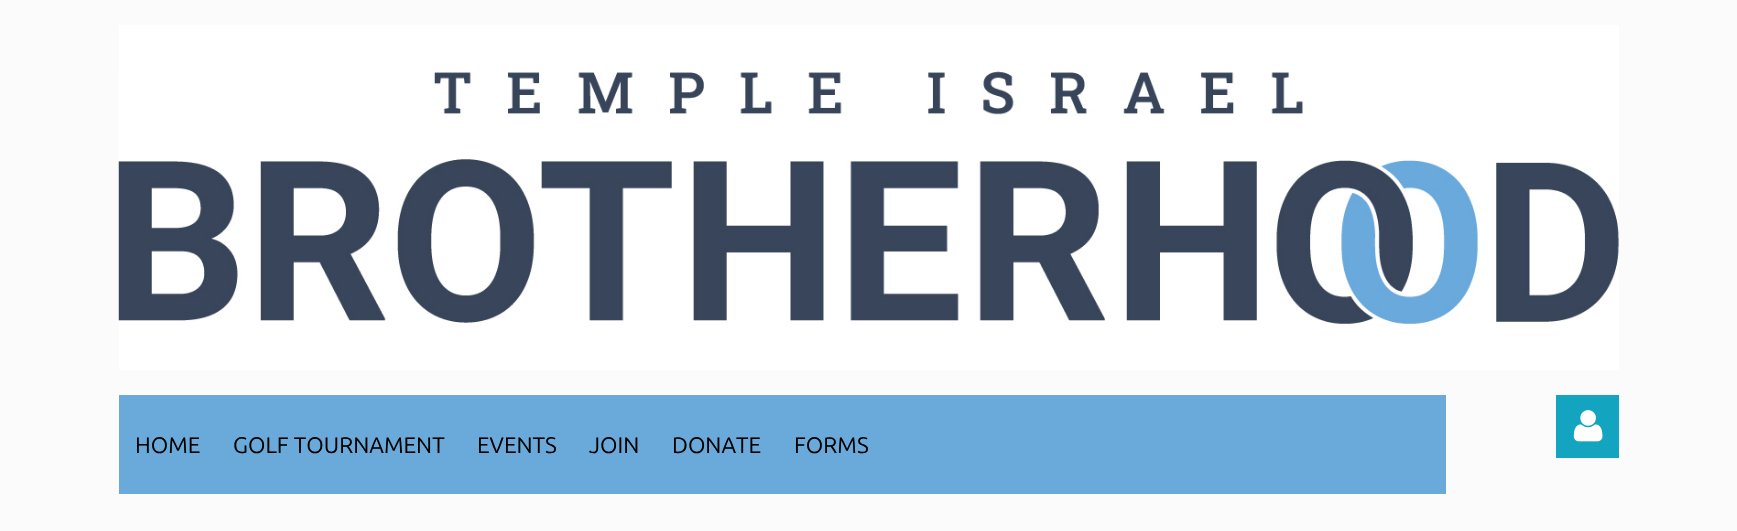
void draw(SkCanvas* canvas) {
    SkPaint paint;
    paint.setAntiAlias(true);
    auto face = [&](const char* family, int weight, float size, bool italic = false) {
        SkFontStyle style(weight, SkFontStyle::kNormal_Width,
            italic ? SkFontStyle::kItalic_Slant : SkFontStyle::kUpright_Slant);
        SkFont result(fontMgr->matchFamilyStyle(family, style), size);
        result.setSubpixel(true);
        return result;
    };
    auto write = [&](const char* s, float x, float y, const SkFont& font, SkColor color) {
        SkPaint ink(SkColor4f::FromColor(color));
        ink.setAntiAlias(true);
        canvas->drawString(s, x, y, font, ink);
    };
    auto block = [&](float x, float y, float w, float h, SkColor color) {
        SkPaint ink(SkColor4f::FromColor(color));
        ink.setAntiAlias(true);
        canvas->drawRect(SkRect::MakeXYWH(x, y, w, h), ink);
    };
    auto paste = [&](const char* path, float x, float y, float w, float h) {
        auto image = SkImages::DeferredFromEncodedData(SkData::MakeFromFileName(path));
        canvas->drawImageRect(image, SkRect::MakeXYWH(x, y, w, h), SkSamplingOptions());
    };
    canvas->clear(SkColorSetRGB(251, 251, 252));
    block(119, 25, 1500, 345, SK_ColorWHITE);
    paste("pic1.png", 118, 71, 1501, 253);
    block(119, 395, 1327, 99, SkColorSetRGB(105, 170, 219));
    auto kFont1 = face("Ubuntu", 400, 22.5f);
    write("HOME", 135, 453, kFont1, SK_ColorBLACK);
    write("GOLF TOURNAMENT", 233, 453, kFont1, SK_ColorBLACK);
    write("EVENTS", 477, 453, kFont1, SK_ColorBLACK);
    write("JOIN", 589, 453, kFont1, SK_ColorBLACK);
    write("DONATE", 672, 453, kFont1, SK_ColorBLACK);
    write("FORMS", 794, 453, kFont1, SK_ColorBLACK);
    block(1556, 395, 63, 63, SkColorSetRGB(19, 165, 191));
    paste("pic2.png", 1573, 410, 30, 32);
}
